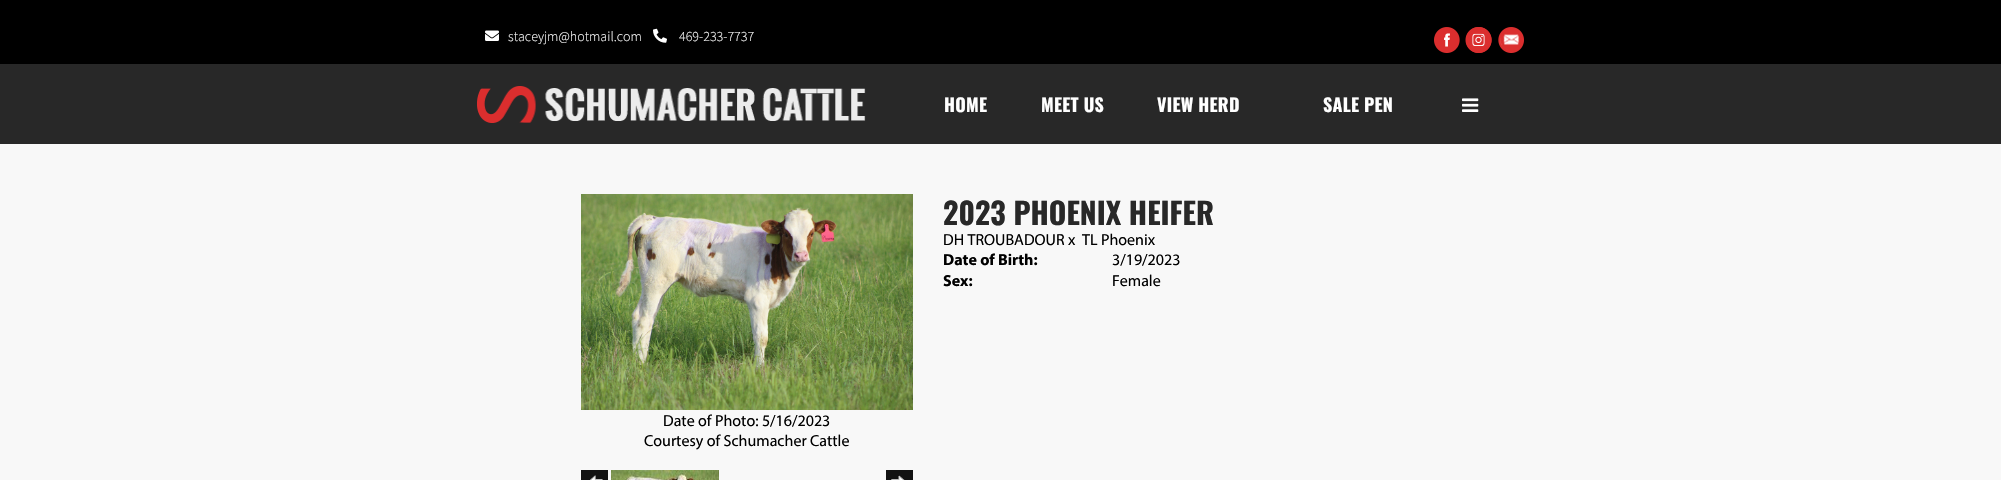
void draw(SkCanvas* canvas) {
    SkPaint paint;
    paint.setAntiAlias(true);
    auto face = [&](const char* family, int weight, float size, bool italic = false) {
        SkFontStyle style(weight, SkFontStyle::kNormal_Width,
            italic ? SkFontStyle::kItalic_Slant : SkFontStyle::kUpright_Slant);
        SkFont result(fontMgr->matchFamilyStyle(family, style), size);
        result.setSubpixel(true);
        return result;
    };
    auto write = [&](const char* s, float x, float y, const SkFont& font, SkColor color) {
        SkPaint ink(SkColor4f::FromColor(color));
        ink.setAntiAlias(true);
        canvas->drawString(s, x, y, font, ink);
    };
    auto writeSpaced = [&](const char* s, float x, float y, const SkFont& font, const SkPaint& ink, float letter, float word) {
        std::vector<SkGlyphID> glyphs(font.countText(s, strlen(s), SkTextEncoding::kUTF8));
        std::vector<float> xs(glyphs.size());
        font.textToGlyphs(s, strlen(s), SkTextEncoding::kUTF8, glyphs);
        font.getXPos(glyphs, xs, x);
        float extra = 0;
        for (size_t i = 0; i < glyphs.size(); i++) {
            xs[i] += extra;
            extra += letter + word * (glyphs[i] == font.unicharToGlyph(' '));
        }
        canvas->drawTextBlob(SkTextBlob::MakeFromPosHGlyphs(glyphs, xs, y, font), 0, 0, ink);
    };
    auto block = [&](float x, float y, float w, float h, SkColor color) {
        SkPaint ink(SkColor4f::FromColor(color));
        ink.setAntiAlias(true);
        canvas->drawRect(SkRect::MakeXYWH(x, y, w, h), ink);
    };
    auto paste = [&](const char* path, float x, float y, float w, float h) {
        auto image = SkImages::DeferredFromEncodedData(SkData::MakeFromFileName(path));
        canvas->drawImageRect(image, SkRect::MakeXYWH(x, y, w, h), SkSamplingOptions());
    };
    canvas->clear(SkColorSetRGB(248, 248, 248));
    block(0, 0, 2001, 64, SK_ColorBLACK);
    paste("pic1.png", 485, 30, 14, 11);
    auto kFont1 = face("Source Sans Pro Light", 300, 14);
    write("staceyjm@hotmail.com", 508, 41, kFont1, SK_ColorWHITE);
    paste("pic2.png", 653, 28, 14, 15);
    write("469-233-7737", 679, 41, kFont1, SK_ColorWHITE);
    paste("pic3.png", 1434, 27, 26, 26);
    paste("pic4.png", 1465, 27, 27, 26);
    paste("pic5.png", 1498, 27, 26, 26);
    block(0, 64, 2001, 80, SkColorSetRGB(40, 40, 40));
    paste("pic6.png", 477, 86, 389, 37);
    auto kFont2 = face("Oswald", 700, 18);
    paint.setColor(SK_ColorWHITE);
    writeSpaced("HOME", 944, 112, kFont2, paint, 0.25f, 0);
    writeSpaced("MEET US", 1041, 112, kFont2, paint, 0.25f, 0);
    writeSpaced("VIEW HERD", 1157, 112, kFont2, paint, 0.25f, 0);
    writeSpaced("SALE PEN", 1323, 112, kFont2, paint, 0.25f, 0);
    paste("pic7.png", 1462, 98, 17, 14);
    auto kFont3 = face("Oswald", 700, 30);
    write("2023 PHOENIX HEIFER", 943, 225, kFont3, SkColorSetRGB(40, 40, 40));
    auto kFont4 = face("Myriad", 400, 16);
    write("DH TROUBADOUR x", 943, 245, kFont4, SK_ColorBLACK);
    write("TL Phoenix", 1082, 245, kFont4, SK_ColorBLACK);
    auto kFont5 = face("Myriad", 700, 16);
    write("Date of Birth:", 943, 265, kFont5, SK_ColorBLACK);
    write("3/19/2023", 1112, 265, kFont4, SK_ColorBLACK);
    write("Sex:", 943, 286, kFont5, SK_ColorBLACK);
    write("Female", 1112, 286, kFont4, SK_ColorBLACK);
    paste("pic8.png", 581, 194, 332, 216);
    write("Date of Photo: 5/16/2023", 663, 426, kFont4, SK_ColorBLACK);
    write("Courtesy of Schumacher Cattle", 644, 446, kFont4, SK_ColorBLACK);
    paste("pic9.png", 581, 470, 27, 10);
    paste("pic10.png", 611, 470, 108, 10);
    paste("pic11.png", 886, 470, 27, 10);
}
